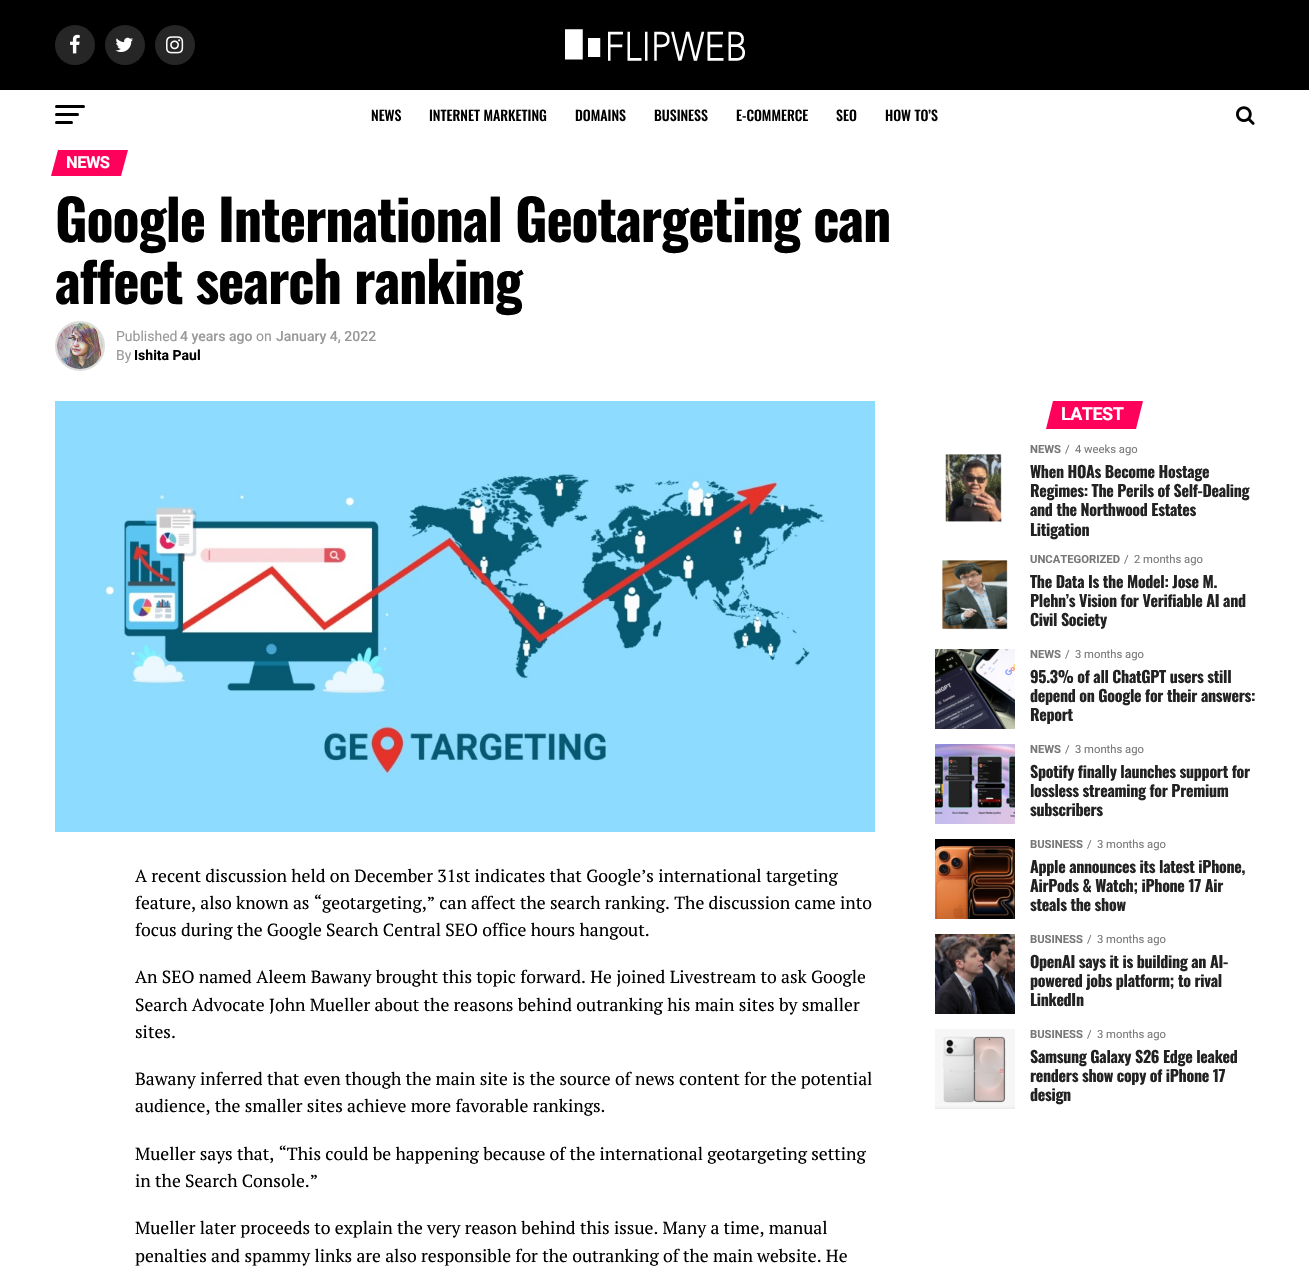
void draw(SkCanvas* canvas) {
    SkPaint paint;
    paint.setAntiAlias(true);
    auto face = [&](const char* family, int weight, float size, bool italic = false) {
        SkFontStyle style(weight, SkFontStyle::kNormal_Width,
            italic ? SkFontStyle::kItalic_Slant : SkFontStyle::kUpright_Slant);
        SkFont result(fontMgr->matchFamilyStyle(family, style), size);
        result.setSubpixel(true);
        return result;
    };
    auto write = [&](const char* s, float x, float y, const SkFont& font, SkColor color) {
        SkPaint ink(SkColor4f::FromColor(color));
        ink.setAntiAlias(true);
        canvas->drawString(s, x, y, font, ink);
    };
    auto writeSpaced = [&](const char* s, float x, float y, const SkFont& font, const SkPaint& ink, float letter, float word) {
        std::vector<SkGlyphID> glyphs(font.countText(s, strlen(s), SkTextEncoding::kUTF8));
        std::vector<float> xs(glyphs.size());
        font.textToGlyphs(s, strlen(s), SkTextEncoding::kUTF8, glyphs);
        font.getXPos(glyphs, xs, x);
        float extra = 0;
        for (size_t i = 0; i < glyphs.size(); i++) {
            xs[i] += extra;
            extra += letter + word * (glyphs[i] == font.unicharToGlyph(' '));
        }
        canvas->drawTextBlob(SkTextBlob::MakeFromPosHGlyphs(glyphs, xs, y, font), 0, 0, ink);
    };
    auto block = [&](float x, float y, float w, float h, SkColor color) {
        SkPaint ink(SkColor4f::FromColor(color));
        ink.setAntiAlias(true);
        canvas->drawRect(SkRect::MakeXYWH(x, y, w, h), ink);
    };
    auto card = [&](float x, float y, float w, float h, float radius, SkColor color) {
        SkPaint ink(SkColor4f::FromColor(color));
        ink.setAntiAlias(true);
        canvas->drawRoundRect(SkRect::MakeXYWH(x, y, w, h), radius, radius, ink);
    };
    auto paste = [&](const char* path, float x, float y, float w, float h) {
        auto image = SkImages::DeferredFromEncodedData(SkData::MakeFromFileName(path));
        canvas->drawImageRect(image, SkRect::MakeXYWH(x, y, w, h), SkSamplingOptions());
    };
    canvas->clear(SK_ColorWHITE);
    block(0, 0, 1309, 90, SK_ColorBLACK);
    paint.setColor(SkColorSetRGB(38, 38, 38));
    canvas->drawCircle(75, 45, 20, paint);
    paste("pic1.png", 70, 34, 10, 20);
    canvas->drawCircle(125, 45, 20, paint);
    paste("pic2.png", 115, 37, 18, 15);
    canvas->drawCircle(175, 45, 20, paint);
    paste("pic3.png", 166, 36, 18, 18);
    paste("pic4.png", 565, 29, 180, 32);
    card(55, 105, 30, 3, 1.5f, SK_ColorBLACK);
    card(55, 113, 24, 3, 1.5f, SK_ColorBLACK);
    card(55, 121, 18, 3, 1.5f, SK_ColorBLACK);
    auto kFont1 = face("Oswald", 500, 14);
    write("NEWS", 371, 121, kFont1, SK_ColorBLACK);
    write("INTERNET MARKETING", 429, 121, kFont1, SK_ColorBLACK);
    write("DOMAINS", 575, 121, kFont1, SK_ColorBLACK);
    write("BUSINESS", 654, 121, kFont1, SK_ColorBLACK);
    write("E-COMMERCE", 736, 121, kFont1, SK_ColorBLACK);
    write("SEO", 836, 121, kFont1, SK_ColorBLACK);
    write("HOW TO’S", 885, 121, kFont1, SK_ColorBLACK);
    paste("pic5.png", 1236, 106, 19, 19);
    paint.setColor(SkColorSetRGB(255, 0, 91));
    canvas->drawPath(SkPathBuilder().moveTo(58, 150).lineTo(128, 150).lineTo(121, 176).lineTo(51, 176).close().detach(), paint);
    auto kFont2 = face("Roboto", 700, 16.5f);
    paint.setColor(SK_ColorWHITE);
    writeSpaced("NEWS", 66, 168, kFont2, paint, -0.5f, 0);
    auto kFont3 = face("Oswald", 700, 56);
    paint.setColor(SK_ColorBLACK);
    writeSpaced("Google International Geotargeting can", 55, 242, kFont3, paint, -1.1f, 0);
    writeSpaced("affect search ranking", 55, 304, kFont3, paint, -1.1f, 0);
    paint.setStyle(SkPaint::kStroke_Style);
    paint.setStrokeWidth(2);
    paint.setColor(SkColorSetRGB(221, 221, 221));
    canvas->drawCircle(80, 346, 24, paint);
    paste("pic6.png", 57, 323, 46, 46);
    auto kFont4 = face("Roboto", 400, 14);
    write("Published", 116, 341, kFont4, SkColorSetRGB(153, 153, 153));
    auto kFont5 = face("Roboto", 500, 14);
    write("4 years ago", 180, 341, kFont5, SkColorSetRGB(153, 153, 153));
    write("on", 256, 341, kFont4, SkColorSetRGB(153, 153, 153));
    write("January 4, 2022", 276, 341, kFont5, SkColorSetRGB(153, 153, 153));
    write("By", 116, 360, kFont4, SkColorSetRGB(153, 153, 153));
    auto kFont6 = face("Roboto", 700, 14);
    write("Ishita Paul", 134, 360, kFont6, SK_ColorBLACK);
    paste("pic7.png", 55, 401, 820, 431);
    auto kFont7 = face("PT Serif", 400, 17.6f);
    write("A recent discussion held on December 31st indicates that Google’s international targeting", 135, 882, kFont7, SK_ColorBLACK);
    write("feature, also known as “geotargeting,” can affect the search ranking. The discussion came into", 135, 909, kFont7, SK_ColorBLACK);
    write("focus during the Google Search Central SEO office hours hangout.", 135, 936, kFont7, SK_ColorBLACK);
    write("An SEO named Aleem Bawany brought this topic forward. He joined Livestream to ask Google", 135, 983, kFont7, SK_ColorBLACK);
    write("Search Advocate John Mueller about the reasons behind outranking his main sites by smaller", 135, 1011, kFont7, SK_ColorBLACK);
    write("sites.", 135, 1038, kFont7, SK_ColorBLACK);
    write("Bawany inferred that even though the main site is the source of news content for the potential", 135, 1085, kFont7, SK_ColorBLACK);
    write("audience, the smaller sites achieve more favorable rankings.", 135, 1112, kFont7, SK_ColorBLACK);
    write("Mueller says that, “This could be happening because of the international geotargeting setting", 135, 1160, kFont7, SK_ColorBLACK);
    write("in the Search Console.”", 135, 1187, kFont7, SK_ColorBLACK);
    write("Mueller later proceeds to explain the very reason behind this issue. Many a time, manual", 135, 1234, kFont7, SK_ColorBLACK);
    write("penalties and spammy links are also responsible for the outranking of the main website. He", 135, 1262, kFont7, SK_ColorBLACK);
    paint.setStyle(SkPaint::kFill_Style);
    paint.setColor(SkColorSetRGB(255, 0, 91));
    canvas->drawPath(SkPathBuilder().moveTo(1053, 401).lineTo(1143, 401).lineTo(1136, 429).lineTo(1046, 429).close().detach(), paint);
    auto kFont8 = face("Roboto", 700, 18);
    paint.setColor(SK_ColorWHITE);
    writeSpaced("LATEST", 1061, 420, kFont8, paint, -0.5f, 0);
    paste("pic8.png", 935, 444, 80, 80);
    auto kFont9 = face("Roboto", 700, 11.25f);
    write("NEWS", 1030, 453, kFont9, SkColorSetRGB(119, 119, 119));
    auto kFont10 = face("Roboto", 400, 11.25f);
    write("/", 1065, 453, kFont10, SkColorSetRGB(119, 119, 119));
    write("4 weeks ago", 1075, 453, kFont10, SkColorSetRGB(119, 119, 119));
    auto kFont11 = face("Oswald", 700, 16);
    paint.setColor(SkColorSetRGB(34, 34, 34));
    writeSpaced("When HOAs Become Hostage", 1030, 478, kFont11, paint, -0.3f, 0);
    writeSpaced("Regimes: The Perils of Self-Dealing", 1030, 497, kFont11, paint, -0.3f, 0);
    writeSpaced("and the Northwood Estates", 1030, 516, kFont11, paint, -0.3f, 0);
    writeSpaced("Litigation", 1030, 536, kFont11, paint, -0.3f, 0);
    paste("pic9.png", 935, 554, 80, 80);
    write("UNCATEGORIZED", 1030, 563, kFont9, SkColorSetRGB(119, 119, 119));
    write("/", 1124, 563, kFont10, SkColorSetRGB(119, 119, 119));
    write("2 months ago", 1134, 563, kFont10, SkColorSetRGB(119, 119, 119));
    writeSpaced("The Data Is the Model: Jose M.", 1030, 588, kFont11, paint, -0.3f, 0);
    writeSpaced("Plehn’s Vision for Verifiable AI and", 1030, 607, kFont11, paint, -0.3f, 0);
    writeSpaced("Civil Society", 1030, 626, kFont11, paint, -0.3f, 0);
    paste("pic10.png", 935, 649, 80, 80);
    write("NEWS", 1030, 658, kFont9, SkColorSetRGB(119, 119, 119));
    write("/", 1065, 658, kFont10, SkColorSetRGB(119, 119, 119));
    write("3 months ago", 1075, 658, kFont10, SkColorSetRGB(119, 119, 119));
    writeSpaced("95.3% of all ChatGPT users still", 1030, 683, kFont11, paint, -0.3f, 0);
    writeSpaced("depend on Google for their answers:", 1030, 702, kFont11, paint, -0.3f, 0);
    writeSpaced("Report", 1030, 721, kFont11, paint, -0.3f, 0);
    paste("pic11.png", 935, 744, 80, 80);
    write("NEWS", 1030, 753, kFont9, SkColorSetRGB(119, 119, 119));
    write("/", 1065, 753, kFont10, SkColorSetRGB(119, 119, 119));
    write("3 months ago", 1075, 753, kFont10, SkColorSetRGB(119, 119, 119));
    writeSpaced("Spotify finally launches support for", 1030, 778, kFont11, paint, -0.3f, 0);
    writeSpaced("lossless streaming for Premium", 1030, 797, kFont11, paint, -0.3f, 0);
    writeSpaced("subscribers", 1030, 816, kFont11, paint, -0.3f, 0);
    block(935, 839, 80, 6, SK_ColorBLACK);
    paste("pic12.png", 935, 845, 80, 74);
    write("BUSINESS", 1030, 848, kFont9, SkColorSetRGB(119, 119, 119));
    write("/", 1087, 848, kFont10, SkColorSetRGB(119, 119, 119));
    write("3 months ago", 1097, 848, kFont10, SkColorSetRGB(119, 119, 119));
    writeSpaced("Apple announces its latest iPhone,", 1030, 873, kFont11, paint, -0.3f, 0);
    writeSpaced("AirPods & Watch; iPhone 17 Air", 1030, 892, kFont11, paint, -0.3f, 0);
    writeSpaced("steals the show", 1030, 911, kFont11, paint, -0.3f, 0);
    paste("pic13.png", 935, 934, 80, 80);
    write("BUSINESS", 1030, 943, kFont9, SkColorSetRGB(119, 119, 119));
    write("/", 1087, 943, kFont10, SkColorSetRGB(119, 119, 119));
    write("3 months ago", 1097, 943, kFont10, SkColorSetRGB(119, 119, 119));
    writeSpaced("OpenAI says it is building an AI-", 1030, 968, kFont11, paint, -0.3f, 0);
    writeSpaced("powered jobs platform; to rival", 1030, 987, kFont11, paint, -0.3f, 0);
    writeSpaced("LinkedIn", 1030, 1006, kFont11, paint, -0.3f, 0);
    paste("pic14.png", 935, 1029, 80, 80);
    write("BUSINESS", 1030, 1038, kFont9, SkColorSetRGB(119, 119, 119));
    write("/", 1087, 1038, kFont10, SkColorSetRGB(119, 119, 119));
    write("3 months ago", 1097, 1038, kFont10, SkColorSetRGB(119, 119, 119));
    writeSpaced("Samsung Galaxy S26 Edge leaked", 1030, 1063, kFont11, paint, -0.3f, 0);
    writeSpaced("renders show copy of iPhone 17", 1030, 1082, kFont11, paint, -0.3f, 0);
    writeSpaced("design", 1030, 1101, kFont11, paint, -0.3f, 0);
}
